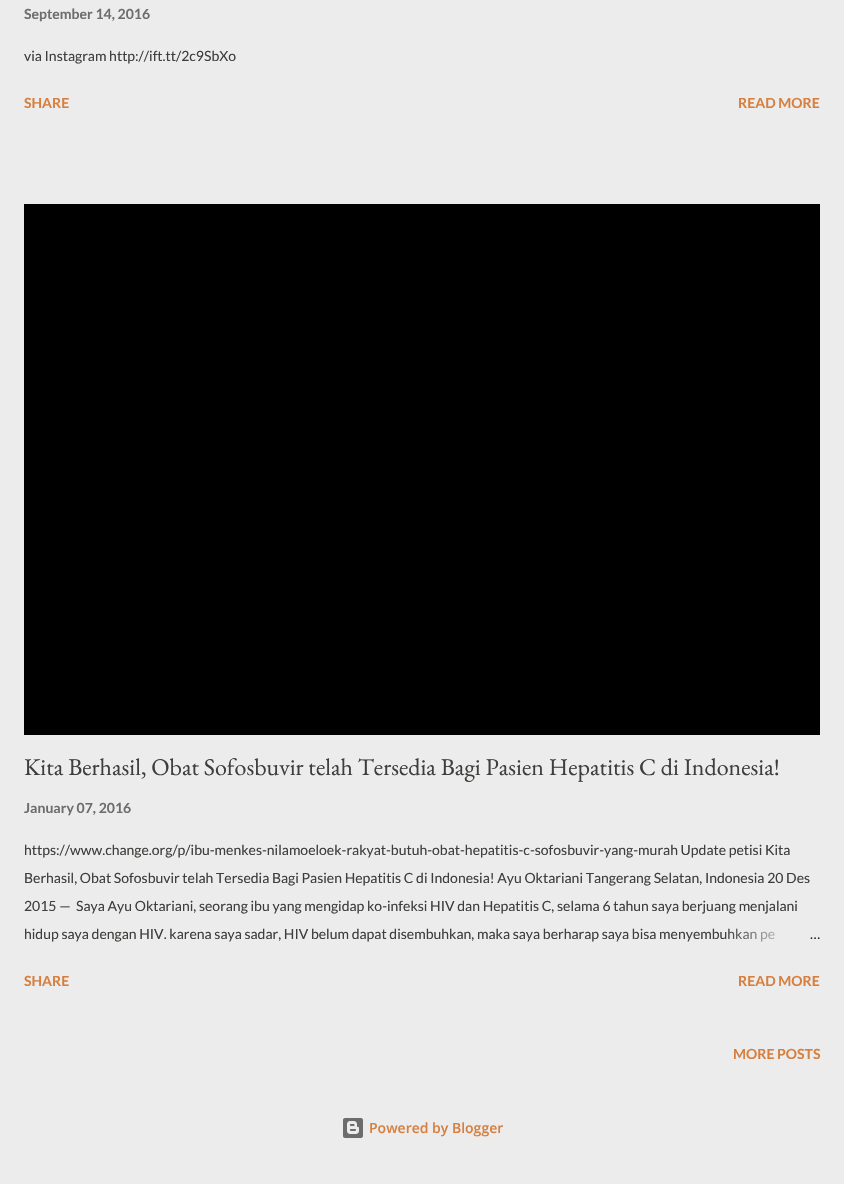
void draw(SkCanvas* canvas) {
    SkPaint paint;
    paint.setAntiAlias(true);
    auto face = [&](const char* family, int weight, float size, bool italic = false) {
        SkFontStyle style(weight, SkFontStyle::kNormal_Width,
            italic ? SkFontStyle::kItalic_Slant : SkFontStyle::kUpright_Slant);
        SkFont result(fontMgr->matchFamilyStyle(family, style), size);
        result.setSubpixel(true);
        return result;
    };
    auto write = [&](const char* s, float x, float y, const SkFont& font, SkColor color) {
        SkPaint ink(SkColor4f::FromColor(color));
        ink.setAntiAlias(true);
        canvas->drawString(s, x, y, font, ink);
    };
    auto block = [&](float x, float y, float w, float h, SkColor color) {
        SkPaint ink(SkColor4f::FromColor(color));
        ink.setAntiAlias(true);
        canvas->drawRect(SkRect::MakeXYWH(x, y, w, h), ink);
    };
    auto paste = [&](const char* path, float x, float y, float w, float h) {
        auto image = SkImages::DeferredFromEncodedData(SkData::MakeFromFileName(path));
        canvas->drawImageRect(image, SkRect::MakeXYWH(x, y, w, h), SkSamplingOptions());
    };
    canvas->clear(SkColorSetRGB(236, 236, 236));
    auto kFont1 = face("Lato", 700, 14);
    write("September 14, 2016", 24, 19, kFont1, SkColorSetRGB(109, 109, 109));
    auto kFont2 = face("Lato", 400, 14);
    write("via Instagram http://ift.tt/2c9SbXo", 24, 61, kFont2, SkColorSetRGB(62, 63, 60));
    write("SHARE", 24, 108, kFont1, SkColorSetRGB(214, 127, 63));
    write("READ MORE", 738, 108, kFont1, SkColorSetRGB(214, 127, 63));
    block(24, 204, 796, 531, SK_ColorBLACK);
    auto kFont3 = face("EB Garamond", 400, 24);
    write("Kita Berhasil, Obat Sofosbuvir telah Tersedia Bagi Pasien Hepatitis C di Indonesia!", 24, 775, kFont3, SkColorSetRGB(62, 63, 60));
    write("January 07, 2016", 24, 813, kFont1, SkColorSetRGB(109, 109, 109));
    write("https://www.change.org/p/ibu-menkes-nilamoeloek-rakyat-butuh-obat-hepatitis-c-sofosbuvir-yang-murah Update petisi Kita", 24, 855, kFont2, SkColorSetRGB(62, 63, 60));
    write("Berhasil, Obat Sofosbuvir telah Tersedia Bagi Pasien Hepatitis C di Indonesia! Ayu Oktariani Tangerang Selatan, Indonesia 20 Des", 24, 883, kFont2, SkColorSetRGB(62, 63, 60));
    write("2015 —  Saya Ayu Oktariani, seorang ibu yang mengidap ko-infeksi HIV dan Hepatitis C, selama 6 tahun saya berjuang menjalani", 24, 911, kFont2, SkColorSetRGB(62, 63, 60));
    write("hidup saya dengan HIV. karena saya sadar, HIV belum dapat disembuhkan, maka saya berharap saya bisa menyembuhkan pe", 24, 939, kFont2, SkColorSetRGB(62, 63, 60));
    {
        const SkColor colors[] = {SkColorSetRGB(236, 236, 236), SkColorSetRGB(236, 236, 236), SkColorSetARGB(0, 236, 236, 236)};
        const float stops[] = {0, 0.2f, 1};
        const SkPoint ends[] = {{820, 934}, {724, 934}};
        paint.setShader(SkGradientShader::MakeLinear(ends, colors, stops, 3, SkTileMode::kClamp));
        paint.setAlpha(255);
    }
    canvas->drawRect(SkRect::MakeXYWH(728, 928, 47, 14), paint);
    write("…", 810, 939, kFont2, SkColorSetRGB(41, 41, 41));
    write("SHARE", 24, 986, kFont1, SkColorSetRGB(214, 127, 63));
    write("READ MORE", 738, 986, kFont1, SkColorSetRGB(214, 127, 63));
    write("MORE POSTS", 733, 1059, kFont1, SkColorSetRGB(214, 127, 63));
    paste("pic1.png", 343, 1118, 20, 20);
    auto kFont4 = face("Open Sans", 600, 14);
    write("Powered by Blogger", 369, 1133, kFont4, SkColorSetRGB(214, 127, 63));
}
